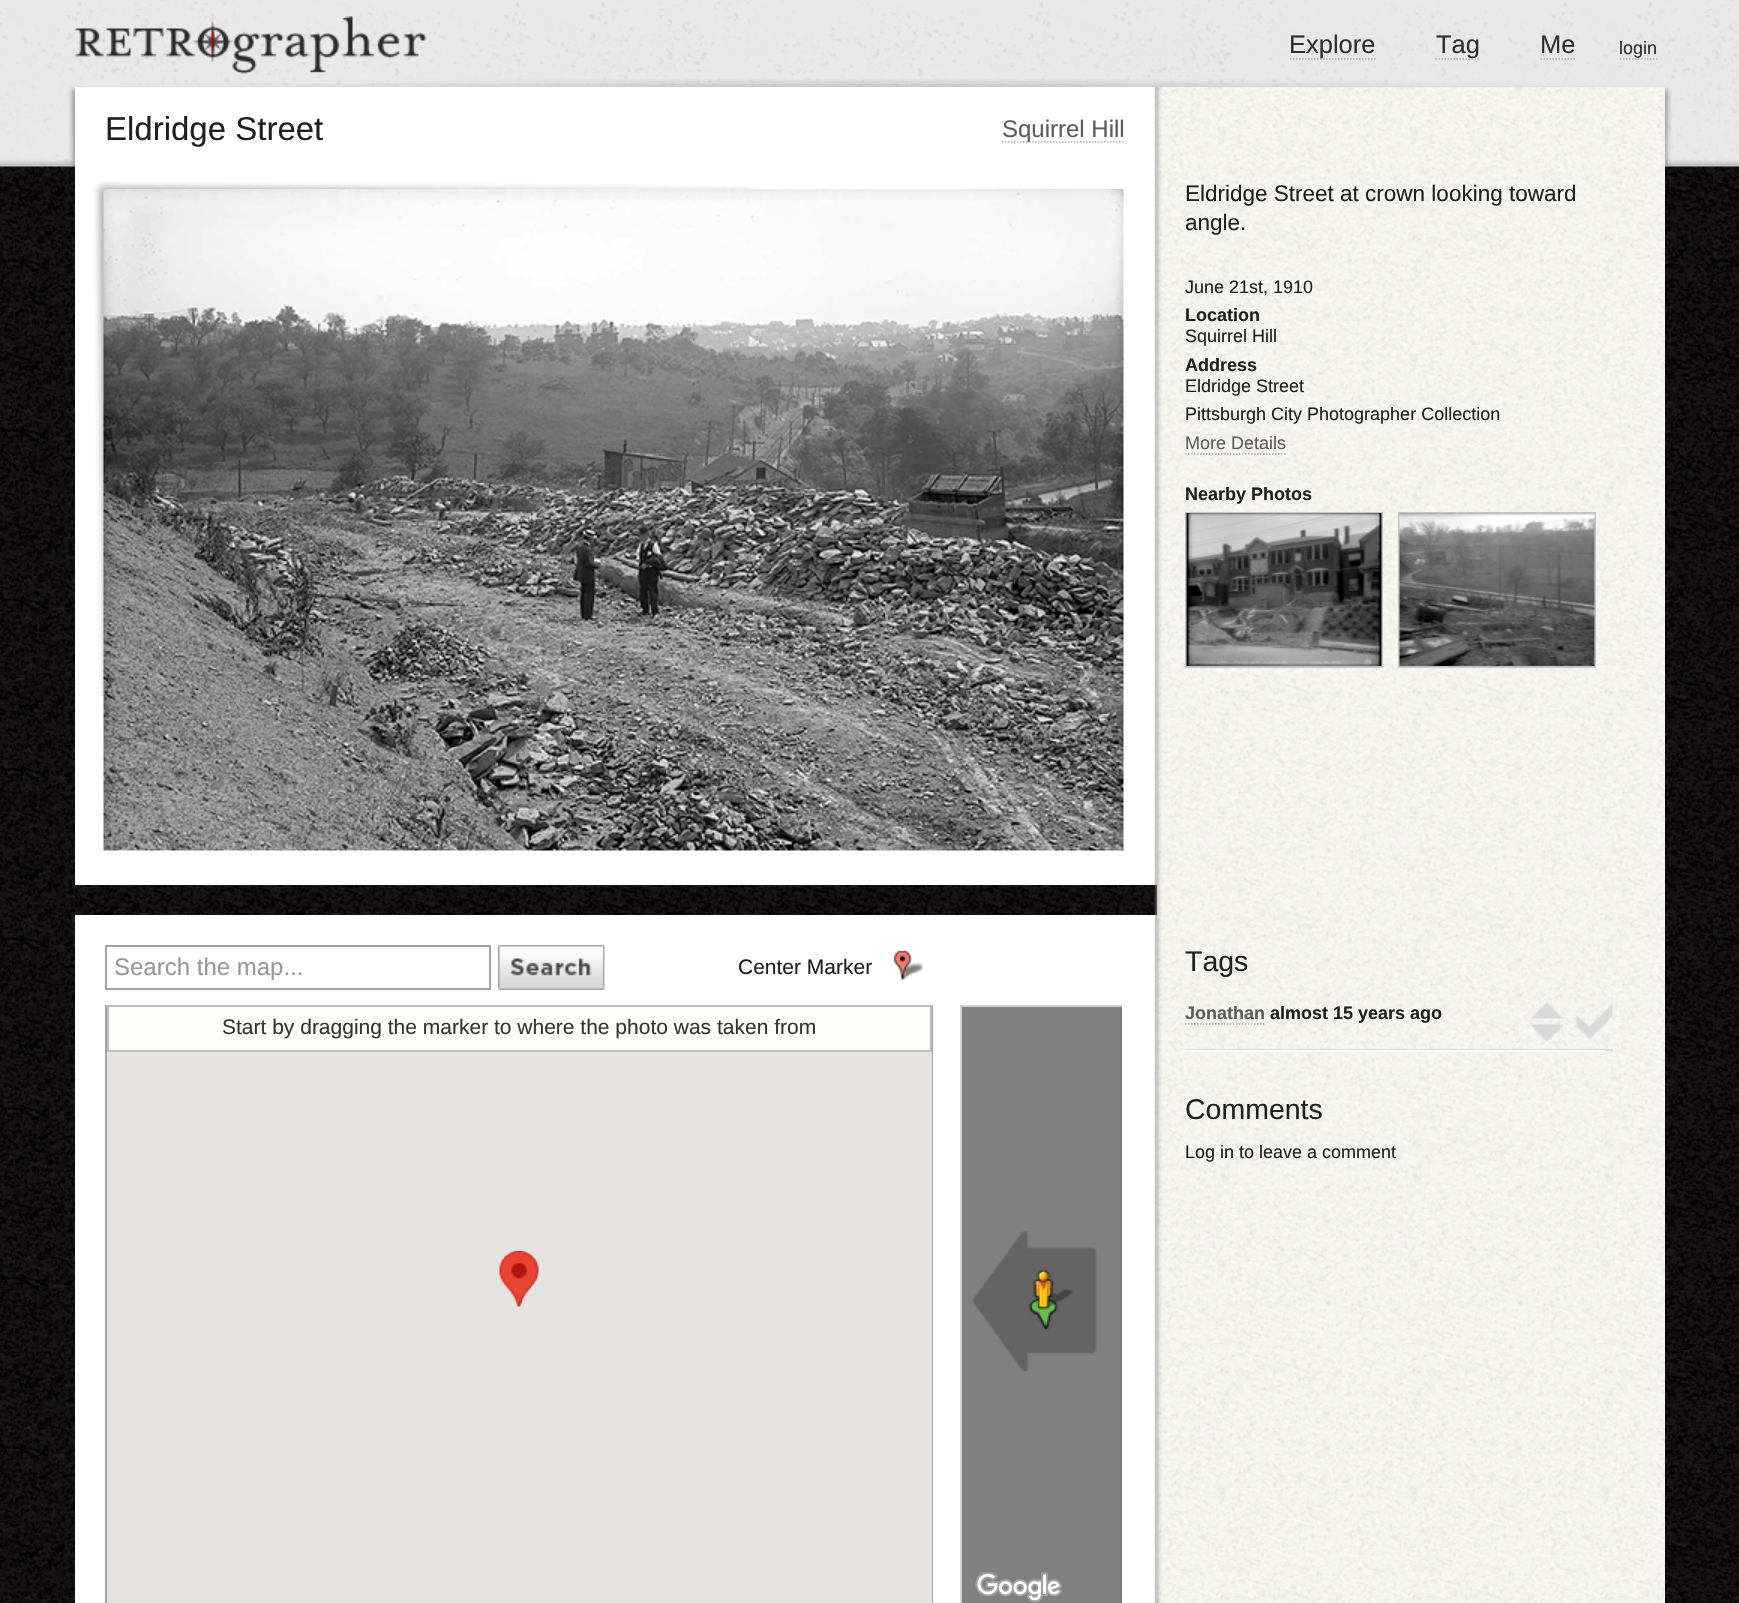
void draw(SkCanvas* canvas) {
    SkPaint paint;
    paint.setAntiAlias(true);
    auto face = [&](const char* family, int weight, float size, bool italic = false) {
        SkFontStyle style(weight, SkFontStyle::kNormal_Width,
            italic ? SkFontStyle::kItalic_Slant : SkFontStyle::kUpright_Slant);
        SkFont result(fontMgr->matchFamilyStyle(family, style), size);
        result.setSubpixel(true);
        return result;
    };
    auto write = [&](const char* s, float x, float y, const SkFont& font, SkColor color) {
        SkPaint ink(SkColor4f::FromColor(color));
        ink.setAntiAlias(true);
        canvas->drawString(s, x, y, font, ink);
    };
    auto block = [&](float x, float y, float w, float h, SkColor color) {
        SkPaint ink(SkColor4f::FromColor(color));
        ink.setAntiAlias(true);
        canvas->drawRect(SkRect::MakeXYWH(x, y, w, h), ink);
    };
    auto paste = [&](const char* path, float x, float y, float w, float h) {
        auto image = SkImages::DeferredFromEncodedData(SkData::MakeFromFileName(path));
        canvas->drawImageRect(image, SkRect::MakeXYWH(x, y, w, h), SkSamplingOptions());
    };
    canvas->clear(SK_ColorWHITE);
    paste("pic1.png", 0, 166, 1739, 1437);
    paste("pic2.png", 0, 0, 1739, 167);
    paste("pic3.png", 75, 16, 352, 58);
    paint.setStyle(SkPaint::kStroke_Style);
    paint.setStrokeWidth(1.5f);
    paint.setColor(SkColorSetRGB(175, 175, 175));
    paint.setPathEffect(SkDashPathEffect::Make({{1.5f, 1.5f}}, 0));
    canvas->drawPath(SkPathBuilder().moveTo(1290, 59).lineTo(1375.5f, 59).detach(), paint);
    paint.setPathEffect(nullptr);
    auto kFont1 = face("Liberation Sans", 400, 25.5f);
    write("Explore", 1289, 53, kFont1, SkColorSetRGB(47, 46, 46));
    paint.setPathEffect(SkDashPathEffect::Make({{1.5f, 1.5f}}, 0));
    canvas->drawPath(SkPathBuilder().moveTo(1435.5f, 59).lineTo(1480.5f, 59).detach(), paint);
    paint.setPathEffect(nullptr);
    write("Tag", 1436, 53, kFont1, SkColorSetRGB(47, 46, 46));
    write("Me", 1540, 53, kFont1, SkColorSetRGB(47, 46, 46));
    paint.setPathEffect(SkDashPathEffect::Make({{1.5f, 1.5f}}, 0));
    canvas->drawPath(SkPathBuilder().moveTo(1540.5f, 59).lineTo(1575, 59).detach(), paint);
    paint.setPathEffect(nullptr);
    auto kFont2 = face("Liberation Sans", 400, 18);
    write("login", 1619, 54, kFont2, SkColorSetRGB(47, 46, 46));
    paint.setPathEffect(SkDashPathEffect::Make({{1.5f, 1.5f}}, 0));
    canvas->drawPath(SkPathBuilder().moveTo(1620, 59).lineTo(1657.5f, 59).detach(), paint);
    paint.setPathEffect(nullptr);
    paste("pic4.png", 68, 79, 1604, 88);
    paste("pic5.png", 75, 87, 1590, 1516);
    auto kFont3 = face("Liberation Sans", 400, 33);
    write("Eldridge Street", 105, 140, kFont3, SkColorSetRGB(32, 32, 32));
    paint.setPathEffect(SkDashPathEffect::Make({{1.5f, 1.5f}}, 0));
    canvas->drawPath(SkPathBuilder().moveTo(1002, 142).lineTo(1125, 142).detach(), paint);
    paint.setPathEffect(nullptr);
    auto kFont4 = face("Liberation Sans", 400, 24);
    write("Squirrel Hill", 1002, 137, kFont4, SkColorSetRGB(94, 93, 93));
    paste("pic6.png", 93, 181, 656, 515);
    paste("pic7.png", 103, 189, 1021, 662);
    auto kFont5 = face("Liberation Sans", 400, 22.5f);
    write("Eldridge Street at crown looking toward", 1185, 201, kFont5, SkColorSetRGB(32, 32, 32));
    write("angle.", 1185, 230, kFont5, SkColorSetRGB(32, 32, 32));
    write("June 21st, 1910", 1185, 293, kFont2, SkColorSetRGB(32, 32, 32));
    auto kFont6 = face("Liberation Sans", 700, 18);
    write("Location", 1185, 321, kFont6, SkColorSetRGB(32, 32, 32));
    write("Squirrel Hill", 1185, 342, kFont2, SkColorSetRGB(32, 32, 32));
    write("Address", 1185, 371, kFont6, SkColorSetRGB(32, 32, 32));
    write("Eldridge Street", 1185, 392, kFont2, SkColorSetRGB(32, 32, 32));
    write("Pittsburgh City Photographer Collection", 1185, 420, kFont2, SkColorSetRGB(32, 32, 32));
    write("More Details", 1185, 449, kFont2, SkColorSetRGB(94, 93, 93));
    paint.setPathEffect(SkDashPathEffect::Make({{1.5f, 1.5f}}, 0));
    canvas->drawPath(SkPathBuilder().moveTo(1185, 454).lineTo(1285.5f, 454).detach(), paint);
    paint.setPathEffect(nullptr);
    write("Nearby Photos", 1185, 500, kFont6, SkColorSetRGB(32, 32, 32));
    paint.setStrokeWidth(2);
    paint.setColor(SkColorSetRGB(198, 197, 197));
    canvas->drawRect(SkRect::MakeXYWH(1186, 513, 196, 154), paint);
    paste("pic8.png", 1186, 513, 196, 153);
    canvas->drawRect(SkRect::MakeXYWH(1399, 513, 196, 154), paint);
    paste("pic9.png", 1399, 513, 196, 153);
    paste("pic10.png", 75, 885, 1080, 30);
    block(1155, 885, 2, 30, SkColorSetRGB(71, 71, 71));
    paint.setColor(SkColorSetRGB(163, 163, 163));
    canvas->drawRect(SkRect::MakeXYWH(106, 946, 384, 43), paint);
    write("Search the map...", 114, 975, kFont4, SkColorSetRGB(152, 152, 152));
    paste("pic11.png", 498, 945, 107, 45);
    paste("pic12.png", 893, 950, 31, 30);
    auto kFont7 = face("Liberation Sans", 400, 21);
    write("Center Marker", 738, 974, kFont7, SkColorSetRGB(32, 32, 32));
    canvas->drawRect(SkRect::MakeXYWH(106, 1006, 826, 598), paint);
    block(107, 1007, 825, 596, SkColorSetRGB(229, 227, 223));
    paste("pic13.png", 499, 1251, 40, 56);
    block(1185, 1049, 428, 2, SkColorSetRGB(216, 216, 216));
    write("Jonathan", 1185, 1019, kFont6, SkColorSetRGB(94, 93, 93));
    paint.setStrokeWidth(1.5f);
    paint.setColor(SkColorSetRGB(175, 175, 175));
    paint.setPathEffect(SkDashPathEffect::Make({{1.5f, 1.5f}}, 0));
    canvas->drawPath(SkPathBuilder().moveTo(1185, 1024).lineTo(1264.5f, 1024).detach(), paint);
    paint.setPathEffect(nullptr);
    write("almost 15 years ago", 1270, 1019, kFont6, SkColorSetRGB(32, 32, 32));
    paste("pic16.png", 1530, 1002, 33, 17);
    paste("pic17.png", 1530, 1024, 33, 18);
    paste("pic18.png", 1576, 1003, 37, 36);
    block(1185, 1050, 420, 2, SK_ColorWHITE);
    canvas->save();
    canvas->clipRect(SkRect::MakeXYWH(105, 1005, 1017, 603));
    paint.setStrokeWidth(2);
    paint.setColor(SkColorSetRGB(163, 163, 163));
    canvas->drawRect(SkRect::MakeXYWH(961, 1006, 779, 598), paint);
    canvas->restore();
    block(962, 1007, 160, 596, SK_ColorBLACK);
    paste("pic14.png", 975, 1571, 88, 32);
    block(107, 1005, 825, 47, SkColorSetARGB(230, 255, 255, 255));
    paint.setColor(SkColorSetARGB(230, 181, 181, 181));
    canvas->drawRect(SkRect::MakeXYWH(108, 1006, 823, 45), paint);
    write("Start by dragging the marker to where the photo was taken from", 222, 1034, kFont7, SkColorSetRGB(52, 52, 51));
    paste("pic15.png", 960, 1005, 162, 598);
    auto kFont8 = face("Liberation Sans", 400, 28.5f);
    write("Tags", 1185, 971, kFont8, SkColorSetRGB(32, 32, 32));
    write("Comments", 1185, 1119, kFont8, SkColorSetRGB(32, 32, 32));
    write("Log in to leave a comment", 1185, 1158, kFont2, SkColorSetRGB(32, 32, 32));
}
